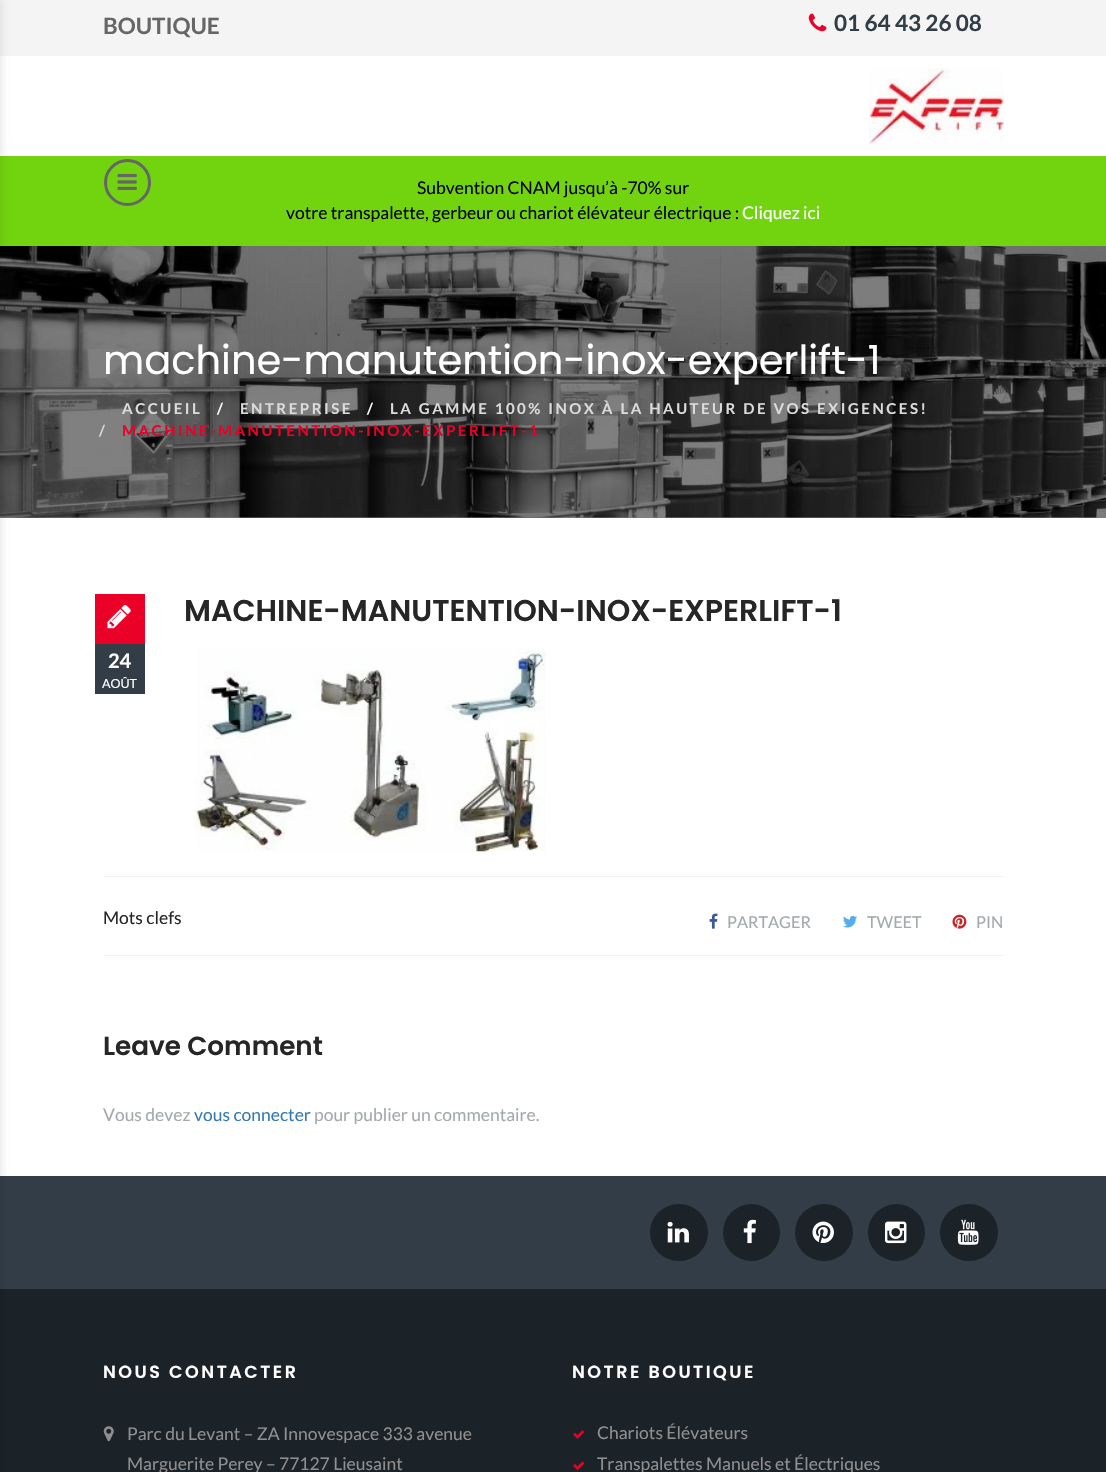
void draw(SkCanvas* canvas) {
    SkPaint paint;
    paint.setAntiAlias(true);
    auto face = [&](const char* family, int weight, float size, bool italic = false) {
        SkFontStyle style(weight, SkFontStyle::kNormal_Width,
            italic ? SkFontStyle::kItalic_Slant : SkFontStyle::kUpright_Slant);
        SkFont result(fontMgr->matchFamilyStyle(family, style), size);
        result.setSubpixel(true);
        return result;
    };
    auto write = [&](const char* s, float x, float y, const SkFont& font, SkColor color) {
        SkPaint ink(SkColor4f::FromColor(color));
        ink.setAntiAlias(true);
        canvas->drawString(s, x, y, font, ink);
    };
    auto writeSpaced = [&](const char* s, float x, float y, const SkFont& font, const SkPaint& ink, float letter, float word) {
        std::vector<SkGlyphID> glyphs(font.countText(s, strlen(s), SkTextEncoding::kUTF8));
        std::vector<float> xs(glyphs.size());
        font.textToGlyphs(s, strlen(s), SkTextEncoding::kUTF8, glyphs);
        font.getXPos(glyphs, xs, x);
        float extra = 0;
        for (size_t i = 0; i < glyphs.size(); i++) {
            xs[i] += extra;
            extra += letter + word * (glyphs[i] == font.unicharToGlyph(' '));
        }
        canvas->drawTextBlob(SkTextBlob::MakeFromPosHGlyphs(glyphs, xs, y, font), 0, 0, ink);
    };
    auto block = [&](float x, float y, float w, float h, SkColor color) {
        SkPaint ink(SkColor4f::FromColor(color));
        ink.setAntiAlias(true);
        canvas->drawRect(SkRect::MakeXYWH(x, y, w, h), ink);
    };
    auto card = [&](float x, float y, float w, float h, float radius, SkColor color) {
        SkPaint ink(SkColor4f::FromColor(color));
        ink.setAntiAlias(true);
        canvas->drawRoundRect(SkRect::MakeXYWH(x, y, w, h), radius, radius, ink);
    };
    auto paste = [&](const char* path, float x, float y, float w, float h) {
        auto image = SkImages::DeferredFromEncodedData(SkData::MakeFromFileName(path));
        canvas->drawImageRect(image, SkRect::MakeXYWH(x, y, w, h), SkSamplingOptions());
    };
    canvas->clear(SK_ColorWHITE);
    block(0, 517, 1106, 1, SkColorSetRGB(128, 128, 128));
    block(0, 0, 1106, 56, SkColorSetRGB(244, 244, 244));
    block(0, 156, 1106, 90, SkColorSetRGB(114, 211, 15));
    paste("pic4.png", 0, 246, 1106, 272);
    block(0, 1176, 1106, 113, SkColorSetRGB(51, 61, 71));
    block(0, 1289, 1106, 183, SkColorSetRGB(27, 34, 40));
    paint.setColor(SkColorSetARGB(26, 0, 0, 0));
    paint.setMaskFilter(SkMaskFilter::MakeBlur(kNormal_SkBlurStyle, 4.5f));
    canvas->drawRect(SkRect::MakeXYWH(-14, -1, 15, 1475), paint);
    paint.setMaskFilter(nullptr);
    paint.setStyle(SkPaint::kStroke_Style);
    paint.setStrokeWidth(3);
    paint.setColor(SkColorSetRGB(102, 102, 102));
    canvas->drawCircle(127.5f, 182.5f, 22, paint);
    paste("pic1.png", 117, 173, 20, 17);
    auto kFont1 = face("Lato", 700, 22.5f);
    write("BOUTIQUE", 103, 34, kFont1, SkColorSetRGB(102, 102, 102));
    paste("pic2.png", 808, 13, 19, 19);
    write("01 64 43 26 08", 834, 31, kFont1, SkColorSetRGB(51, 61, 71));
    paste("pic3.png", 868, 68, 136, 76);
    auto kFont2 = face("Lato", 400, 17.5f);
    write("Subvention CNAM jusqu’à -70% sur", 417, 194, kFont2, SK_ColorBLACK);
    write("votre transpalette, gerbeur ou chariot élévateur électrique :", 286, 219, kFont2, SK_ColorBLACK);
    write("Cliquez ici", 742, 219, kFont2, SK_ColorWHITE);
    auto kFont3 = face("Poppins", 400, 40);
    write("machine-manutention-inox-experlift-1", 103, 374, kFont3, SK_ColorWHITE);
    auto kFont4 = face("Lato", 700, 15);
    paint.setStyle(SkPaint::kFill_Style);
    paint.setColor(SkColorSetRGB(219, 219, 219));
    writeSpaced("ACCUEIL", 122, 414, kFont4, paint, 2.5f, 0);
    paint.setColor(SK_ColorWHITE);
    writeSpaced("/", 217, 414, kFont4, paint, 2.5f, 0);
    paint.setColor(SkColorSetRGB(219, 219, 219));
    writeSpaced("ENTREPRISE", 240, 414, kFont4, paint, 2.5f, 0);
    paint.setColor(SK_ColorWHITE);
    writeSpaced("/", 367, 414, kFont4, paint, 2.5f, 0);
    paint.setColor(SkColorSetRGB(219, 219, 219));
    writeSpaced("LA GAMME 100% INOX À LA HAUTEUR DE VOS EXIGENCES!", 390, 414, kFont4, paint, 2.5f, 0);
    writeSpaced("/", 99, 436, kFont4, paint, 2.5f, 0);
    paint.setColor(SkColorSetRGB(235, 0, 40));
    writeSpaced("MACHINE-MANUTENTION-INOX-EXPERLIFT-1", 122, 436, kFont4, paint, 2.5f, 0);
    block(104, 876, 900, 1, SkColorSetRGB(243, 243, 243));
    auto kFont5 = face("Poppins", 600, 30);
    write("MACHINE-MANUTENTION-INOX-EXPERLIFT-1", 184, 621, kFont5, SkColorSetRGB(38, 38, 38));
    block(95, 594, 50, 50, SkColorSetRGB(235, 0, 40));
    paste("pic5.png", 107, 605, 24, 24);
    block(95, 644, 50, 50, SkColorSetRGB(51, 61, 71));
    auto kFont6 = face("Lato", 700, 20);
    write("24", 108, 668, kFont6, SK_ColorWHITE);
    auto kFont7 = face("Lato", 400, 12.5f);
    write("AOÛT", 102, 688, kFont7, SK_ColorWHITE);
    paste("pic6.png", 195, 648, 351, 204);
    block(104, 955, 900, 1, SkColorSetRGB(243, 243, 243));
    write("Mots clefs", 103, 924, kFont2, SkColorSetRGB(38, 38, 38));
    paste("pic7.png", 709, 913, 9, 16);
    auto kFont8 = face("Lato", 400, 16.25f);
    write("PARTAGER", 727, 928, kFont8, SkColorSetRGB(163, 169, 172));
    paste("pic8.png", 843, 915, 14, 13);
    write("TWEET", 867, 928, kFont8, SkColorSetRGB(163, 169, 172));
    paste("pic9.png", 952, 914, 15, 15);
    write("PIN", 976, 928, kFont8, SkColorSetRGB(163, 169, 172));
    auto kFont9 = face("Poppins", 600, 26.25f);
    write("Leave Comment", 103, 1055, kFont9, SkColorSetRGB(38, 38, 38));
    write("Vous devez", 103, 1121, kFont2, SkColorSetRGB(163, 169, 172));
    write("vous connecter", 194, 1121, kFont2, SkColorSetRGB(51, 122, 183));
    write("pour publier un commentaire.", 314, 1121, kFont2, SkColorSetRGB(163, 169, 172));
    card(650, 1204, 58, 57, 28.5f, SkColorSetRGB(27, 34, 40));
    paste("pic10.png", 667, 1221, 22, 22);
    paint.setColor(SkColorSetRGB(27, 34, 40));
    canvas->drawCircle(751.5f, 1232.5f, 28.5f, paint);
    paste("pic11.png", 743, 1219, 13, 25);
    card(795, 1204, 58, 57, 28.5f, SkColorSetRGB(27, 34, 40));
    paste("pic12.png", 812, 1221, 22, 22);
    canvas->drawCircle(896.5f, 1232.5f, 28.5f, paint);
    paste("pic13.png", 885, 1221, 22, 23);
    card(940, 1204, 58, 57, 28.5f, SkColorSetRGB(27, 34, 40));
    paste("pic14.png", 957, 1219, 22, 26);
    auto kFont10 = face("Poppins", 600, 17.5f);
    paint.setColor(SK_ColorWHITE);
    writeSpaced("NOUS CONTACTER", 103, 1378, kFont10, paint, 2.5f, 0);
    paste("pic15.png", 103, 1426, 11, 16);
    write("Parc du Levant – ZA Innovespace 333 avenue", 127, 1440, kFont2, SkColorSetRGB(143, 143, 143));
    write("Marguerite Perey – 77127 Lieusaint", 127, 1470, kFont2, SkColorSetRGB(143, 143, 143));
    writeSpaced("NOTRE BOUTIQUE", 572, 1378, kFont10, paint, 2.5f, 0);
    paste("pic16.png", 573, 1430, 12, 9);
    write("Chariots Élévateurs", 597, 1439, kFont2, SkColorSetRGB(143, 143, 143));
    paste("pic17.png", 573, 1461, 12, 9);
    write("Transpalettes Manuels et Électriques", 597, 1470, kFont2, SkColorSetRGB(143, 143, 143));
}
